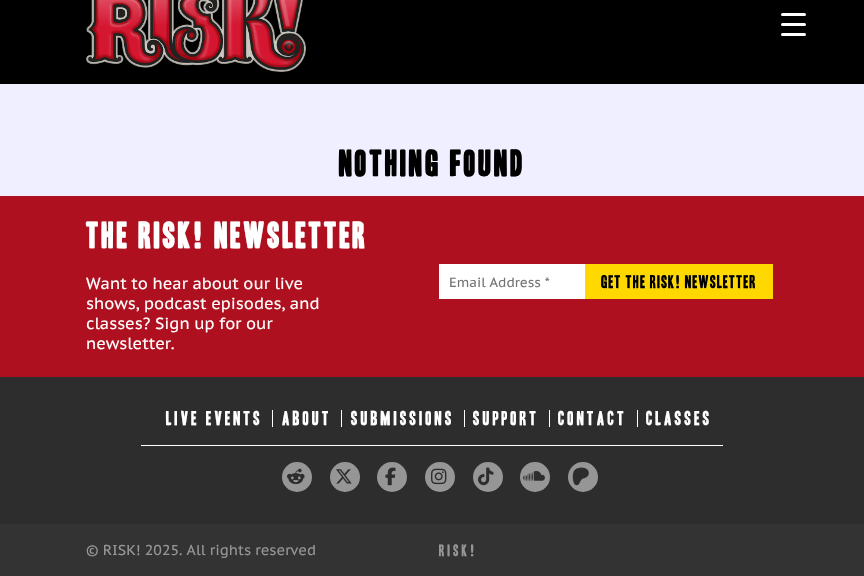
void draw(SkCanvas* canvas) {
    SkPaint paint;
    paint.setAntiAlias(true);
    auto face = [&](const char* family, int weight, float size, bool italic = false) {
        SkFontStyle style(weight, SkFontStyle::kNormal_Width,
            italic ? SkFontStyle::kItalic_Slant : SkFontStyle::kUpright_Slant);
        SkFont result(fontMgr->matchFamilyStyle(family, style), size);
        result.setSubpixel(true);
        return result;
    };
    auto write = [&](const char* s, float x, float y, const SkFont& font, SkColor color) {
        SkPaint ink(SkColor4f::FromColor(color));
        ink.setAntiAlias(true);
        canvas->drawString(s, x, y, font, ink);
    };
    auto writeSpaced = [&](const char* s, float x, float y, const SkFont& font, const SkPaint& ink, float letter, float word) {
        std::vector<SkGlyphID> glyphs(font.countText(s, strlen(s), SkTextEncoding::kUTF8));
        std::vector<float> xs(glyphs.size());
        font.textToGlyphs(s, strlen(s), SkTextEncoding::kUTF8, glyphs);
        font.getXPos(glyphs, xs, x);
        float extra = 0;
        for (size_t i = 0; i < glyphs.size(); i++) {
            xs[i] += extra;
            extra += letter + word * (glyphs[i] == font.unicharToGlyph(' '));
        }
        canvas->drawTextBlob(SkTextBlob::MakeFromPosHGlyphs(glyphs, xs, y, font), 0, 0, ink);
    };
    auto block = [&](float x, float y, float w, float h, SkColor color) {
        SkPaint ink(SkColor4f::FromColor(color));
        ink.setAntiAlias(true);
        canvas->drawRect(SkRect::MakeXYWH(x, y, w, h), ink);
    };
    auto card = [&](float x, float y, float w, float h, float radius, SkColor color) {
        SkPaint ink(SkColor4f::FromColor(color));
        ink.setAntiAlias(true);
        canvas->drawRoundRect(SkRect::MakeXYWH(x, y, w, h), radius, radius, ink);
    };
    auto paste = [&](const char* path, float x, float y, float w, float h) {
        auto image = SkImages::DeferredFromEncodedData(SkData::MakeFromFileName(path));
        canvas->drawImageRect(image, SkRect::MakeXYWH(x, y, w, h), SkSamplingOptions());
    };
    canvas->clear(SK_ColorBLACK);
    paste("pic1.png", 86, 0, 220, 72);
    card(781, 23, 25, 3, 1.5f, SK_ColorWHITE);
    card(781, 13, 25, 3, 1.5f, SK_ColorWHITE);
    card(781, 33, 25, 3, 1.5f, SK_ColorWHITE);
    block(0, 84, 864, 112, SkColorSetRGB(239, 239, 255));
    auto kFont1 = face("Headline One", 700, 32);
    paint.setColor(SK_ColorBLACK);
    writeSpaced("Nothing Found", 339, 176, kFont1, paint, 3, 0);
    block(0, 196, 864, 181, SkColorSetRGB(174, 16, 31));
    paint.setColor(SK_ColorWHITE);
    writeSpaced("THE RISK! Newsletter", 86, 248, kFont1, paint, 3, 0);
    auto kFont2 = face("PT Sans Caption", 400, 16);
    write("Want to hear about our live", 86, 289, kFont2, SK_ColorWHITE);
    write("shows, podcast episodes, and", 86, 309, kFont2, SK_ColorWHITE);
    write("classes? Sign up for our", 86, 329, kFont2, SK_ColorWHITE);
    write("newsletter.", 86, 349, kFont2, SK_ColorWHITE);
    block(439, 264, 146, 35, SK_ColorWHITE);
    auto kFont3 = face("PT Sans Caption", 400, 13.25f);
    write("Email Address *", 449, 287, kFont3, SkColorSetRGB(117, 117, 117));
    block(585, 264, 188, 35, SkColorSetRGB(255, 216, 0));
    auto kFont4 = face("Headline One", 400, 16);
    paint.setColor(SK_ColorBLACK);
    writeSpaced("GET THE RISK! NEWSLETTER", 601, 288, kFont4, paint, 1, 0);
    block(0, 377, 864, 147, SkColorSetRGB(45, 45, 45));
    block(141, 445, 582, 1, SK_ColorWHITE);
    block(272, 410, 1, 17, SK_ColorWHITE);
    auto kFont5 = face("Headline One", 400, 17.5f);
    paint.setColor(SK_ColorWHITE);
    writeSpaced("LIVE EVENTS", 166, 425, kFont5, paint, 3, 0);
    block(341, 410, 1, 17, SK_ColorWHITE);
    writeSpaced("ABOUT", 282, 425, kFont5, paint, 3, 0);
    block(464, 410, 1, 17, SK_ColorWHITE);
    writeSpaced("SUBMISSIONS", 351, 425, kFont5, paint, 3, 0);
    block(549, 410, 1, 17, SK_ColorWHITE);
    writeSpaced("SUPPORT", 473, 425, kFont5, paint, 3, 0);
    block(637, 410, 1, 17, SK_ColorWHITE);
    writeSpaced("CONTACT", 558, 425, kFont5, paint, 3, 0);
    writeSpaced("CLASSES", 646, 425, kFont5, paint, 3, 0);
    paint.setColor(SkColorSetRGB(150, 150, 150));
    canvas->drawCircle(297, 477, 15, paint);
    paste("pic2.png", 287, 468, 18, 17);
    canvas->drawCircle(345, 477, 15, paint);
    paste("pic3.png", 336, 469, 16, 15);
    canvas->drawCircle(392, 477, 15, paint);
    paste("pic4.png", 385, 467, 11, 19);
    canvas->drawCircle(440, 477, 15, paint);
    paste("pic5.png", 431, 468, 16, 17);
    canvas->drawCircle(488, 477, 15, paint);
    paste("pic6.png", 478, 467, 16, 19);
    canvas->drawCircle(535, 477, 15, paint);
    paste("pic7.png", 523, 471, 22, 10);
    canvas->drawCircle(583, 477, 15, paint);
    paste("pic8.png", 572, 467, 17, 19);
    block(0, 524, 864, 52, SkColorSetRGB(51, 51, 51));
    auto kFont6 = face("PT Sans Caption", 400, 14.4f);
    write("© RISK! 2025. All rights reserved", 86, 555, kFont6, SkColorSetRGB(150, 150, 150));
    auto kFont7 = face("Headline One", 400, 14.4f);
    writeSpaced("RISK!", 439, 556, kFont7, paint, 3, 0);
}
